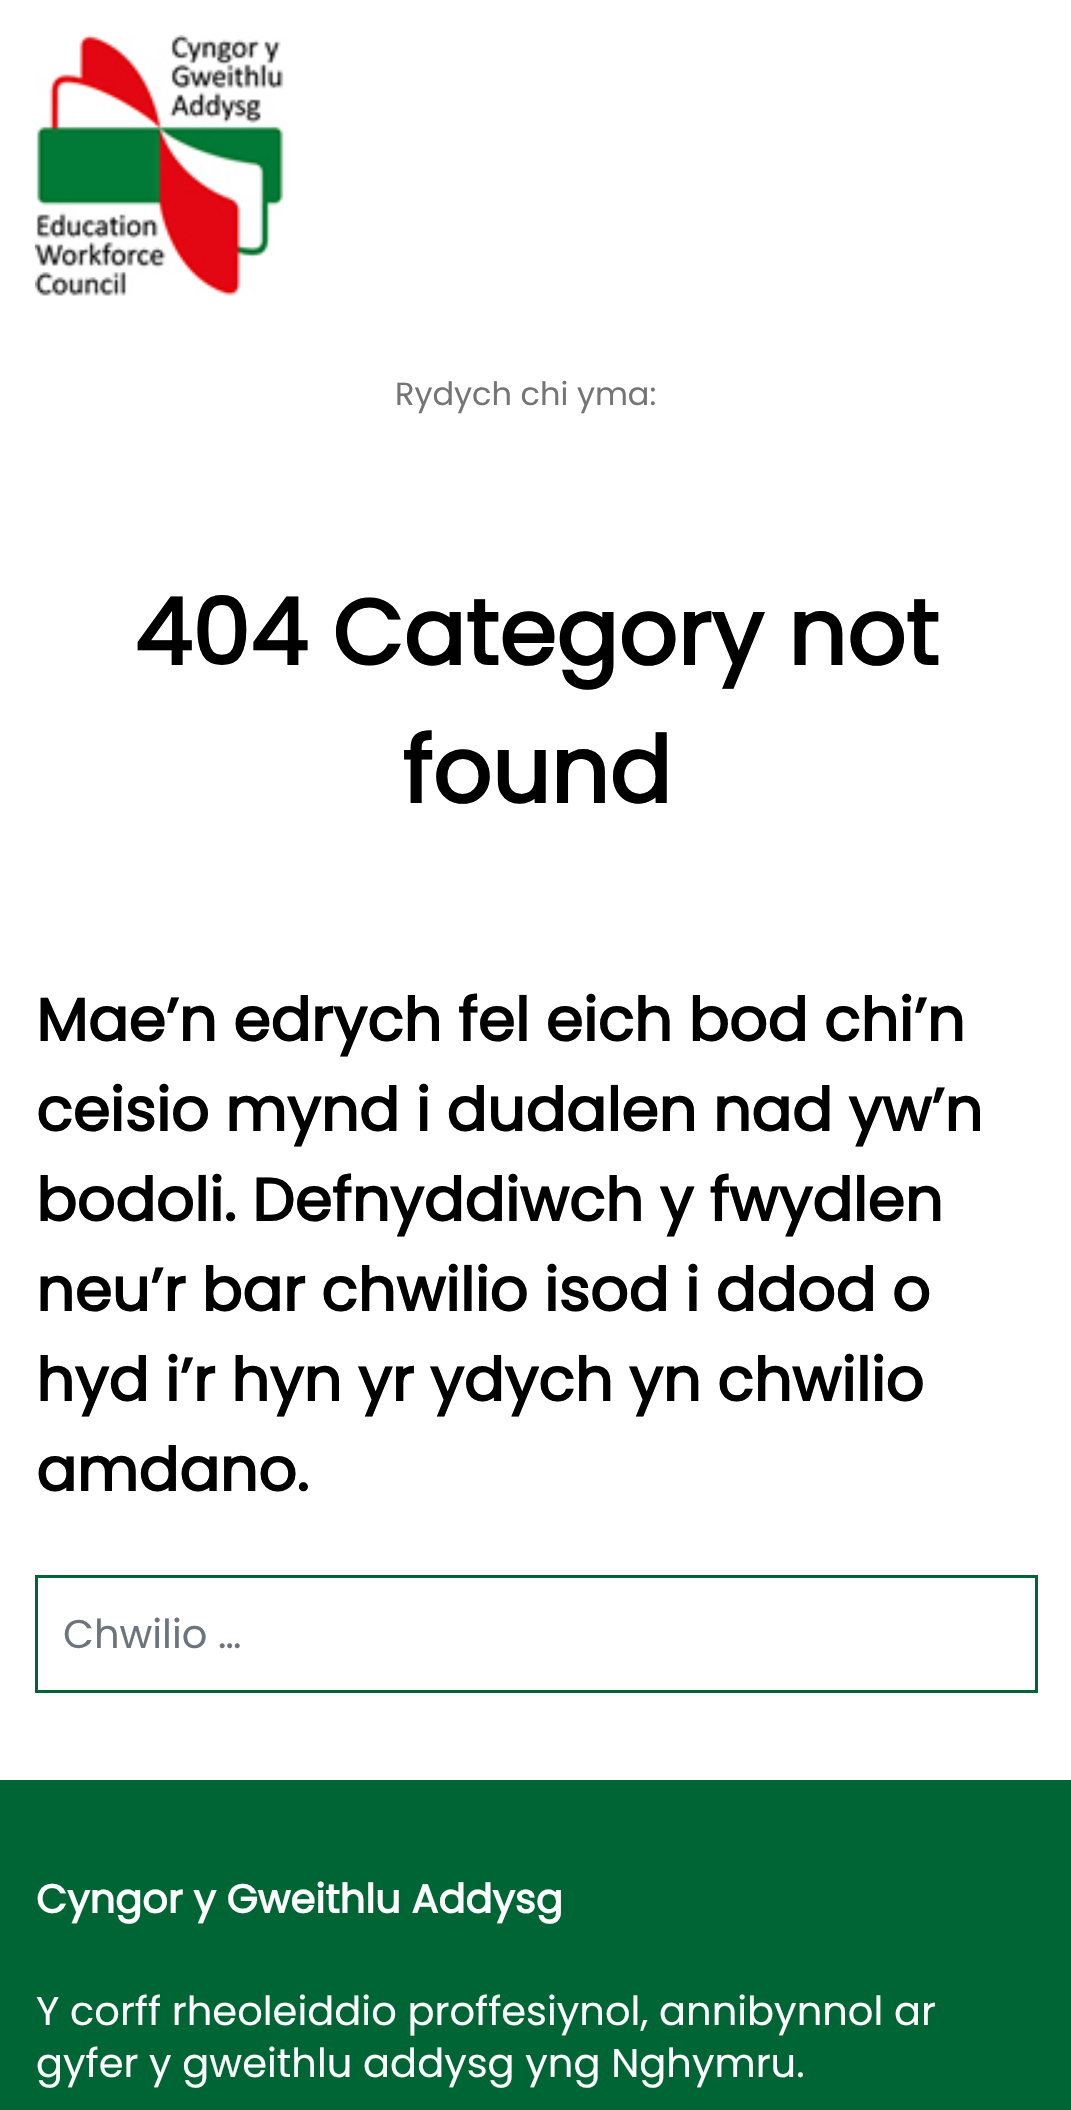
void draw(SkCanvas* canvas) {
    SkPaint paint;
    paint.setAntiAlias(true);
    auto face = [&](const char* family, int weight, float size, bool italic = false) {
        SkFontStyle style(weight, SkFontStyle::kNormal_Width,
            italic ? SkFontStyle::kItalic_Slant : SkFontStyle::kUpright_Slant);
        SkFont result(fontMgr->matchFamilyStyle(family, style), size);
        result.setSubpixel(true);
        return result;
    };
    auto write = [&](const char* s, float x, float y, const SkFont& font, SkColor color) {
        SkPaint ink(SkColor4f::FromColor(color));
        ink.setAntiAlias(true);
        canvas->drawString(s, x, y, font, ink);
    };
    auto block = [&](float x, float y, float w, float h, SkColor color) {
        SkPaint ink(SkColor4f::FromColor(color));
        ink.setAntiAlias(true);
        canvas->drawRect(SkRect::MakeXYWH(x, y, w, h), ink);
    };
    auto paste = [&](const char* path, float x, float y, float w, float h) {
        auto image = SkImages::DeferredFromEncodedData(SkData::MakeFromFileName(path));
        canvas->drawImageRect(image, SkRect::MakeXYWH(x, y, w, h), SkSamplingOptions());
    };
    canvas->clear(SK_ColorWHITE);
    paste("pic1.png", 35, 35, 249, 261);
    auto kFont1 = face("Poppins", 400, 32);
    write("Rydych chi yma:", 395, 405, kFont1, SkColorSetRGB(117, 117, 117));
    auto kFont2 = face("Poppins", 700, 92);
    write("404 Category not", 134, 665, kFont2, SK_ColorBLACK);
    write("found", 402, 803, kFont2, SK_ColorBLACK);
    auto kFont3 = face("Poppins", 700, 60);
    write("Mae’n edrych fel eich bod chi’n", 36, 1041, kFont3, SK_ColorBLACK);
    write("ceisio mynd i dudalen nad yw’n", 36, 1131, kFont3, SK_ColorBLACK);
    write("bodoli. Defnyddiwch y fwydlen", 36, 1221, kFont3, SK_ColorBLACK);
    write("neu’r bar chwilio isod i ddod o", 36, 1311, kFont3, SK_ColorBLACK);
    write("hyd i’r hyn yr ydych yn chwilio", 36, 1401, kFont3, SK_ColorBLACK);
    write("amdano.", 36, 1491, kFont3, SK_ColorBLACK);
    paint.setStyle(SkPaint::kStroke_Style);
    paint.setStrokeWidth(3);
    paint.setColor(SkColorSetRGB(0, 101, 52));
    canvas->drawRect(SkRect::MakeXYWH(36.5f, 1576.5f, 1000, 115), paint);
    auto kFont4 = face("Poppins", 400, 40);
    write("Chwilio …", 63, 1648, kFont4, SkColorSetRGB(108, 117, 125));
    block(0, 1780, 1071, 330, SkColorSetRGB(0, 101, 52));
    auto kFont5 = face("Poppins", 700, 40);
    write("Cyngor y Gweithlu Addysg", 36, 1913, kFont5, SK_ColorWHITE);
    write("Y corff rheoleiddio proffesiynol, annibynnol ar", 36, 2025, kFont4, SK_ColorWHITE);
    write("gyfer y gweithlu addysg yng Nghymru.", 36, 2077, kFont4, SK_ColorWHITE);
}
